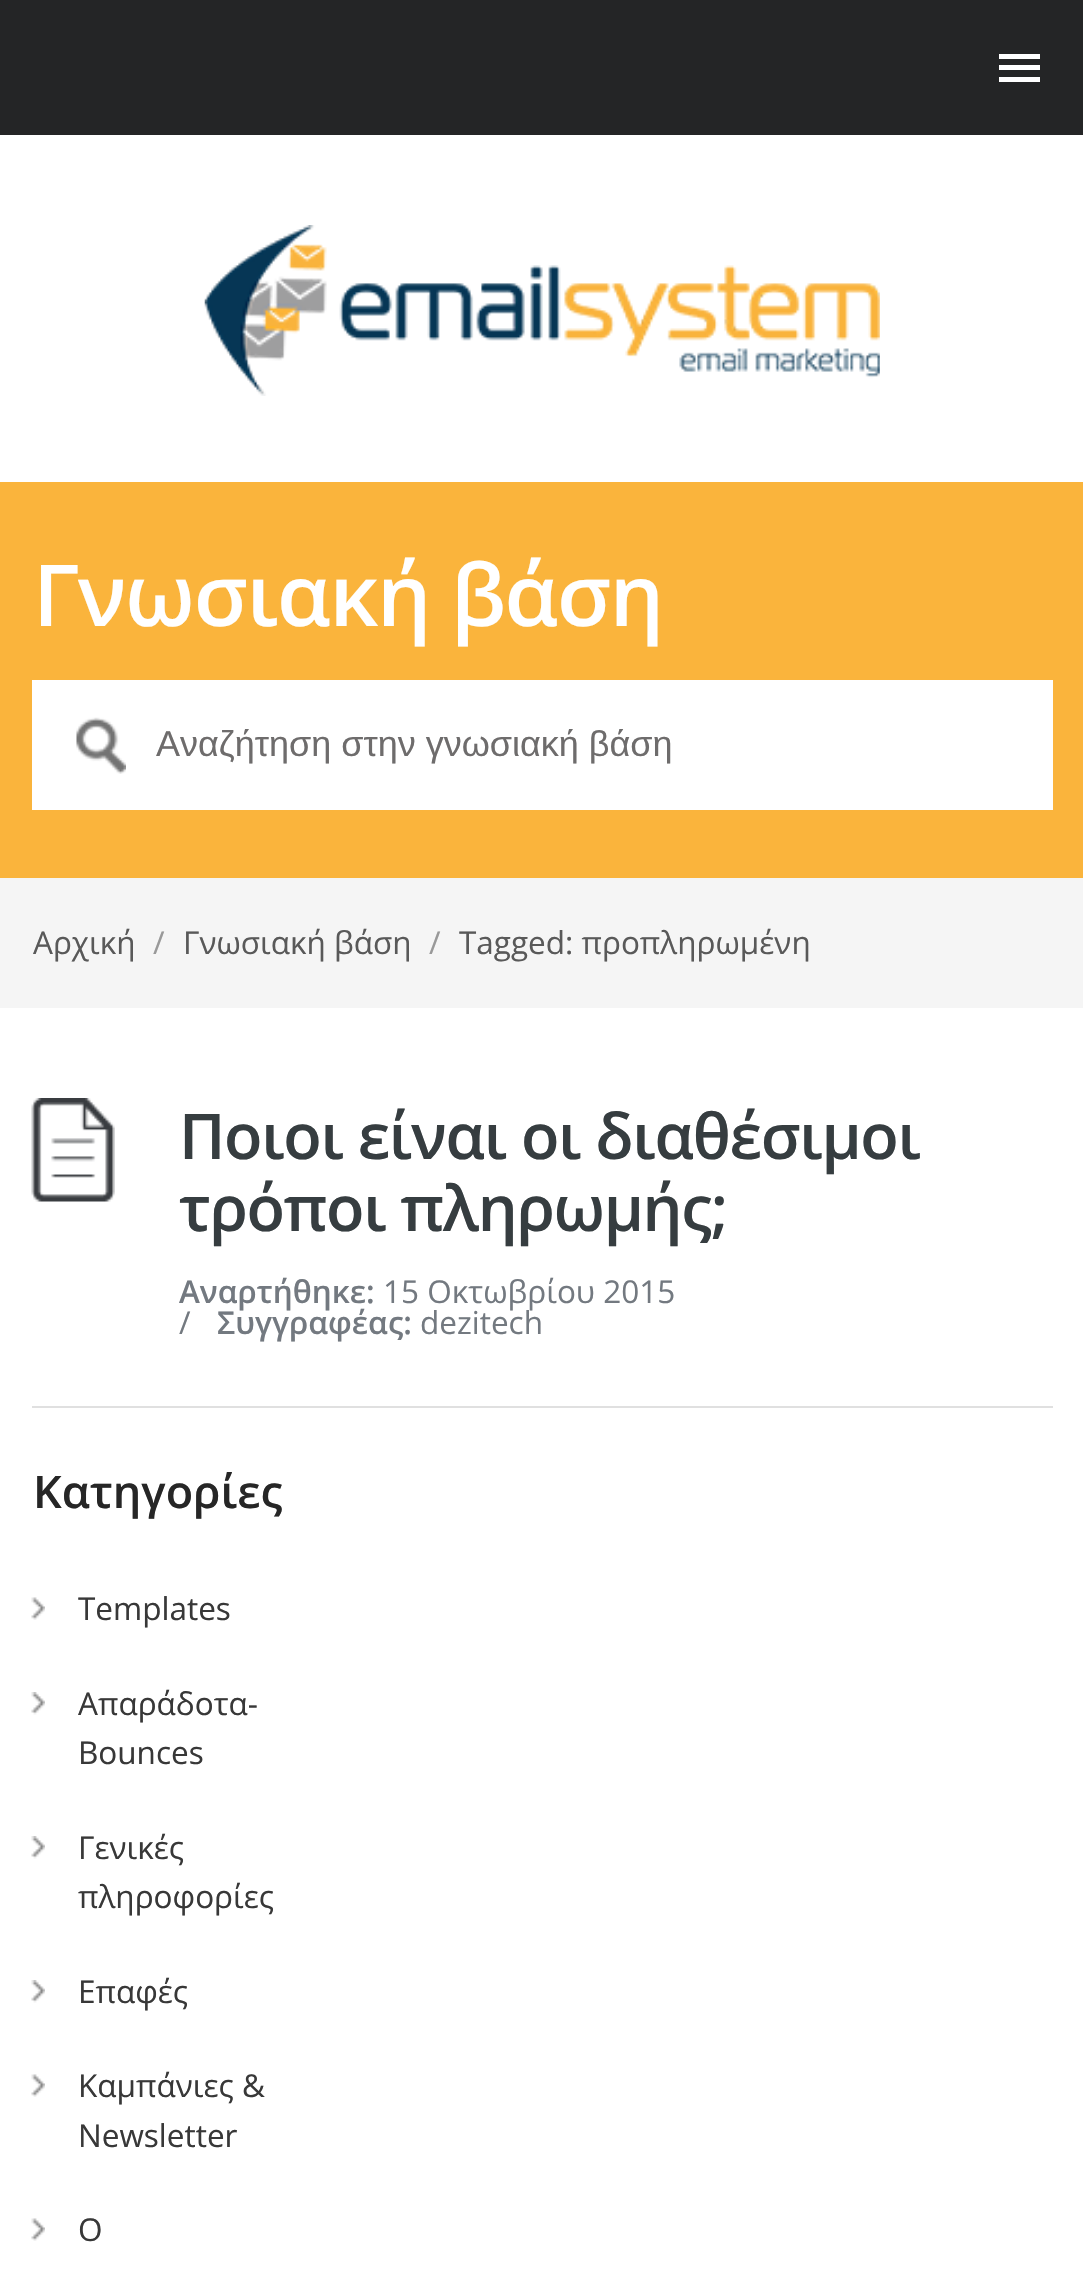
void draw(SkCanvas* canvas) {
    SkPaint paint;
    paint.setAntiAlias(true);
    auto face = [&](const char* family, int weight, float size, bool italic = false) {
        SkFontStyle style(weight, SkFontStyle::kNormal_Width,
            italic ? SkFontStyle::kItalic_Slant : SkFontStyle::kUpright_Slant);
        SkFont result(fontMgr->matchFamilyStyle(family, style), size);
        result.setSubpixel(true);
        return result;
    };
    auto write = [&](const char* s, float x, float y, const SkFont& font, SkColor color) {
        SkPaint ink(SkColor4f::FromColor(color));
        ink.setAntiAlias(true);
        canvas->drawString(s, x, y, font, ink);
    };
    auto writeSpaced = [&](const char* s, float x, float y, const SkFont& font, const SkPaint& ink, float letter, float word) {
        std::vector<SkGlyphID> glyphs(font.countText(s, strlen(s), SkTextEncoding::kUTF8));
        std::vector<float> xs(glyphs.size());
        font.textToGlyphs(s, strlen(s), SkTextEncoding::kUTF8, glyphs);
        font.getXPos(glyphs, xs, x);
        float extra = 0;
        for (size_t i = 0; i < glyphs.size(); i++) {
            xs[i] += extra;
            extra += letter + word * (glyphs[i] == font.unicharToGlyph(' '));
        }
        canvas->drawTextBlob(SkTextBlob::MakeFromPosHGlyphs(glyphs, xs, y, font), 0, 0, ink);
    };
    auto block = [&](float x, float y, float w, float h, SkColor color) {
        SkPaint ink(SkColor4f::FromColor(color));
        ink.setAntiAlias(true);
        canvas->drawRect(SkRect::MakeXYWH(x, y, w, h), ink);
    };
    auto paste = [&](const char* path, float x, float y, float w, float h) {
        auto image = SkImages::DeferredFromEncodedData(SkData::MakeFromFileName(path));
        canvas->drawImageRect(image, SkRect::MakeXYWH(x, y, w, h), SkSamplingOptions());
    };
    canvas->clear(SK_ColorWHITE);
    block(0, 0, 1083, 135, SkColorSetRGB(36, 37, 38));
    block(999, 54, 41, 5, SK_ColorWHITE);
    block(999, 65, 41, 5, SK_ColorWHITE);
    block(999, 77, 41, 5, SK_ColorWHITE);
    paste("pic1.png", 204, 225, 676, 171);
    block(0, 482, 1083, 396, SkColorSetRGB(250, 180, 60));
    auto kFont1 = face("Open Sans", 600, 85.5f);
    paint.setColor(SK_ColorWHITE);
    writeSpaced("Γνωσιακή βάση", 33, 626, kFont1, paint, -1.35f, 0);
    block(32, 680, 1021, 130, SK_ColorWHITE);
    paste("pic2.png", 76, 717, 50, 57);
    auto kFont2 = face("Liberation Sans", 400, 36);
    write("Αναζήτηση στην γνωσιακή βάση", 156, 756, kFont2, SkColorSetRGB(110, 108, 108));
    block(0, 878, 1083, 130, SkColorSetRGB(245, 245, 245));
    auto kFont3 = face("Open Sans", 400, 31.5f);
    write("Αρχική", 33, 954, kFont3, SkColorSetRGB(89, 89, 89));
    write("/", 153, 954, kFont3, SkColorSetRGB(153, 153, 153));
    write("Γνωσιακή βάση", 183, 954, kFont3, SkColorSetRGB(89, 89, 89));
    write("/", 429, 954, kFont3, SkColorSetRGB(153, 153, 153));
    write("Tagged: προπληρωμένη", 459, 954, kFont3, SkColorSetRGB(89, 89, 89));
    paste("pic3.png", 31, 1098, 84, 104);
    block(32, 1406, 1021, 2, SkColorSetRGB(224, 224, 224));
    auto kFont4 = face("Open Sans", 600, 63);
    paint.setColor(SkColorSetRGB(54, 61, 64));
    writeSpaced("Ποιοι είναι οι διαθέσιμοι", 179, 1159, kFont4, paint, -1.35f, 0);
    writeSpaced("τρόποι πληρωμής;", 179, 1231, kFont4, paint, -1.35f, 0);
    auto kFont5 = face("Open Sans", 600, 31.5f);
    write("Αναρτήθηκε:", 179, 1303, kFont5, SkColorSetRGB(115, 121, 128));
    write("15 Οκτωβρίου 2015", 383, 1303, kFont3, SkColorSetRGB(115, 121, 128));
    write("/", 179, 1334, kFont3, SkColorSetRGB(115, 121, 128));
    write("Συγγραφέας:", 217, 1334, kFont5, SkColorSetRGB(115, 121, 128));
    write("dezitech", 420, 1334, kFont3, SkColorSetRGB(115, 121, 128));
    auto kFont6 = face("Open Sans", 600, 45);
    write("Κατηγορίες", 33, 1508, kFont6, SkColorSetRGB(38, 38, 38));
    paste("pic4.png", 31, 1597, 14, 23);
    write("Templates", 78, 1620, kFont3, SkColorSetRGB(56, 56, 56));
    paste("pic5.png", 31, 1692, 14, 23);
    write("Απαράδοτα-", 78, 1715, kFont3, SkColorSetRGB(56, 56, 56));
    write("Bounces", 78, 1764, kFont3, SkColorSetRGB(56, 56, 56));
    paste("pic5.png", 31, 1836, 14, 23);
    write("Γενικές", 78, 1859, kFont3, SkColorSetRGB(56, 56, 56));
    write("πληροφορίες", 78, 1908, kFont3, SkColorSetRGB(56, 56, 56));
    paste("pic5.png", 31, 1980, 14, 23);
    write("Επαφές", 78, 2003, kFont3, SkColorSetRGB(56, 56, 56));
    paste("pic4.png", 31, 2074, 14, 23);
    write("Καμπάνιες &", 78, 2097, kFont3, SkColorSetRGB(56, 56, 56));
    write("Newsletter", 78, 2147, kFont3, SkColorSetRGB(56, 56, 56));
    paste("pic4.png", 31, 2218, 14, 23);
    write("Ο", 78, 2241, kFont3, SkColorSetRGB(56, 56, 56));
}
